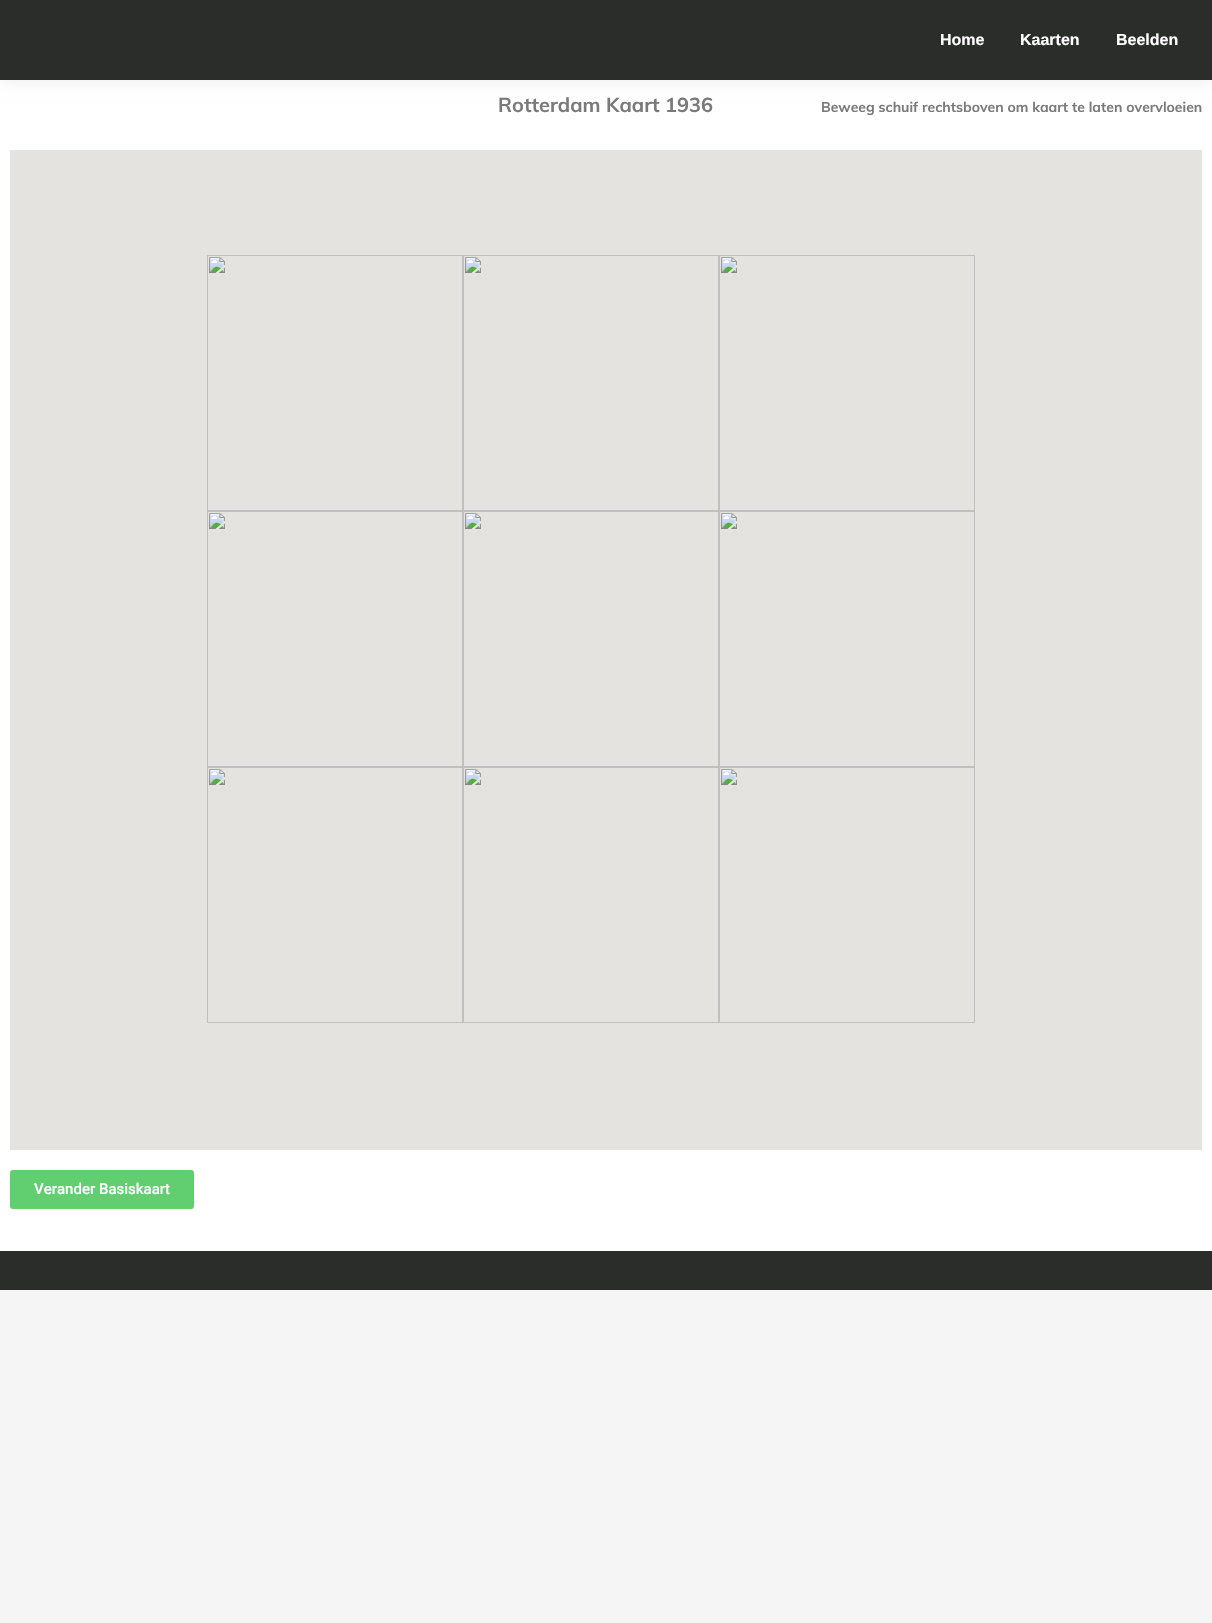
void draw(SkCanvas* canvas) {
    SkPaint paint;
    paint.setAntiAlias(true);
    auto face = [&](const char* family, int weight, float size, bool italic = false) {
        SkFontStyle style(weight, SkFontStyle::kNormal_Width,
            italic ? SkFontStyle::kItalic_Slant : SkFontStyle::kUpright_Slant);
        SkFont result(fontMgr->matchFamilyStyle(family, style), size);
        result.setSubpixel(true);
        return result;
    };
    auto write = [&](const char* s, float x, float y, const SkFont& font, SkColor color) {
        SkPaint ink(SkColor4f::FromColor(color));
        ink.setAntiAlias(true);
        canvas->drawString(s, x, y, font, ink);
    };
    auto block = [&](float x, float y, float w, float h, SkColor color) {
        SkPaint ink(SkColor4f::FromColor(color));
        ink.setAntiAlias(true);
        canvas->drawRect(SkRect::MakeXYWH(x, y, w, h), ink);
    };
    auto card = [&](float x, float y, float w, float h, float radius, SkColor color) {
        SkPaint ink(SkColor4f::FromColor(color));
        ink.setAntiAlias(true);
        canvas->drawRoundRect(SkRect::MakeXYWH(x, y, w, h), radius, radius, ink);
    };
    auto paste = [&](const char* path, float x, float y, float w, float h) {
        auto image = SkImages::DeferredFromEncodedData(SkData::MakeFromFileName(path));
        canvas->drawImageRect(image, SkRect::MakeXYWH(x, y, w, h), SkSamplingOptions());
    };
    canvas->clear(SkColorSetRGB(245, 245, 245));
    block(0, 80, 1212, 1171, SK_ColorWHITE);
    paint.setColor(SkColorSetARGB(18, 0, 0, 0));
    paint.setMaskFilter(SkMaskFilter::MakeBlur(kNormal_SkBlurStyle, 7.5f));
    canvas->drawRect(SkRect::MakeXYWH(-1, -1, 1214, 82), paint);
    paint.setMaskFilter(nullptr);
    block(0, 0, 1212, 80, SkColorSetRGB(43, 45, 43));
    auto kFont1 = face("Liberation Sans", 700, 16);
    write("Home", 940, 45, kFont1, SK_ColorWHITE);
    write("Kaarten", 1020, 45, kFont1, SK_ColorWHITE);
    write("Beelden", 1116, 45, kFont1, SK_ColorWHITE);
    auto kFont2 = face("Muli", 700, 20);
    write("Rotterdam Kaart 1936", 498, 112, kFont2, SkColorSetRGB(122, 122, 122));
    auto kFont3 = face("Muli", 700, 14);
    write("Beweeg schuif rechtsboven om kaart te laten overvloeien", 821, 112, kFont3, SkColorSetRGB(122, 122, 122));
    paste("pic1.png", 10, 150, 1192, 1000);
    card(10, 1170, 184, 39, 3, SkColorSetRGB(97, 206, 112));
    auto kFont4 = face("Roboto", 500, 15);
    write("Verander Basiskaart", 34, 1194, kFont4, SK_ColorWHITE);
    block(0, 1251, 1212, 39, SkColorSetRGB(43, 45, 43));
}
